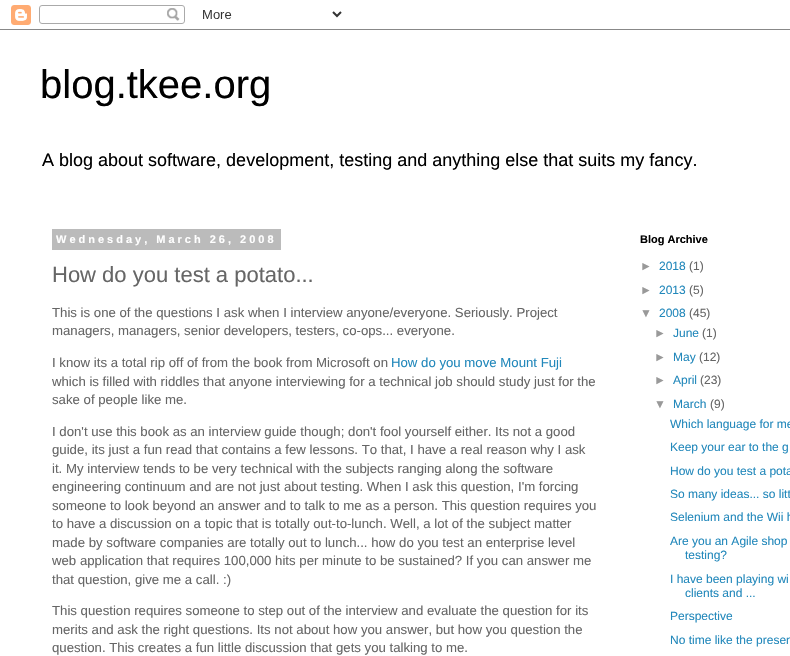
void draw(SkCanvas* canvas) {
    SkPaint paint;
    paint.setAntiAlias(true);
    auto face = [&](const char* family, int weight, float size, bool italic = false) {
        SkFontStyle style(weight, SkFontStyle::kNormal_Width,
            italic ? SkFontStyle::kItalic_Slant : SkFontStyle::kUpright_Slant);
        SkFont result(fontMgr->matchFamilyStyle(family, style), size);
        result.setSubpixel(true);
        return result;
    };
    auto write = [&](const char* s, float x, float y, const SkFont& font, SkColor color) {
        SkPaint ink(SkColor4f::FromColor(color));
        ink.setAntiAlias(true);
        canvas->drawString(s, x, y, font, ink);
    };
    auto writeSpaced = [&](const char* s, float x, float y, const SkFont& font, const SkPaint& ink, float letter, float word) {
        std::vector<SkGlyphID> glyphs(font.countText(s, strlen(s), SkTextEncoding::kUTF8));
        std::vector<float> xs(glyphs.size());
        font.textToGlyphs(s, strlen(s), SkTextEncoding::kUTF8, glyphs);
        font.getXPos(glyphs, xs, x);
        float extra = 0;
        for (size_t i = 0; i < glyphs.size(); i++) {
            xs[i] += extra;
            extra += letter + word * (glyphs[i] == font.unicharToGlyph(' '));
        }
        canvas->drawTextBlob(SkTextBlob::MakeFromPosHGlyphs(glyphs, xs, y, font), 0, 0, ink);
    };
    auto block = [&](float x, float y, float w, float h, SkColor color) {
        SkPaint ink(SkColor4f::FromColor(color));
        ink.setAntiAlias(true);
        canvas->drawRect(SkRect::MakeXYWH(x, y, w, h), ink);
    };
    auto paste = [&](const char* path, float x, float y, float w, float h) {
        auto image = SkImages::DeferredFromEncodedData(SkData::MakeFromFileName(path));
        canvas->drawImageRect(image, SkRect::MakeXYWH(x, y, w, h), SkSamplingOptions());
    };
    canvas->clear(SK_ColorWHITE);
    paste("pic1.png", 0, 5, 790, 25);
    auto kFont1 = face("Liberation Sans", 400, 40);
    write("blog.tkee.org", 40, 98, kFont1, SK_ColorBLACK);
    auto kFont2 = face("Liberation Sans", 400, 18);
    write("A blog about software, development, testing and anything else that suits my fancy.", 42, 166, kFont2, SK_ColorBLACK);
    block(52, 229, 229, 21, SkColorSetRGB(187, 187, 187));
    auto kFont3 = face("Liberation Sans", 700, 11);
    paint.setColor(SK_ColorWHITE);
    writeSpaced("Wednesday, March 26, 2008", 56, 243, kFont3, paint, 3, 0);
    auto kFont4 = face("Liberation Sans", 400, 22);
    write("How do you test a potato...", 52, 282, kFont4, SkColorSetRGB(102, 102, 102));
    auto kFont5 = face("Liberation Sans", 400, 13.2f);
    write("This is one of the questions I ask when I interview anyone/everyone. Seriously. Project", 52, 317, kFont5, SkColorSetRGB(102, 102, 102));
    write("managers, managers, senior developers, testers, co-ops... everyone.", 52, 335, kFont5, SkColorSetRGB(102, 102, 102));
    write("I know its a total rip off of from the book from Microsoft on", 52, 367, kFont5, SkColorSetRGB(102, 102, 102));
    write("How do you move Mount Fuji", 391, 367, kFont5, SkColorSetRGB(34, 136, 187));
    write("which is filled with riddles that anyone interviewing for a technical job should study just for the", 52, 386, kFont5, SkColorSetRGB(102, 102, 102));
    write("sake of people like me.", 52, 404, kFont5, SkColorSetRGB(102, 102, 102));
    write("I don't use this book as an interview guide though; don't fool yourself either. Its not a good", 52, 436, kFont5, SkColorSetRGB(102, 102, 102));
    write("guide, its just a fun read that contains a few lessons. To that, I have a real reason why I ask", 52, 454, kFont5, SkColorSetRGB(102, 102, 102));
    write("it. My interview tends to be very technical with the subjects ranging along the software", 52, 473, kFont5, SkColorSetRGB(102, 102, 102));
    write("engineering continuum and are not just about testing. When I ask this question, I'm forcing", 52, 491, kFont5, SkColorSetRGB(102, 102, 102));
    write("someone to look beyond an answer and to talk to me as a person. This question requires you", 52, 510, kFont5, SkColorSetRGB(102, 102, 102));
    write("to have a discussion on a topic that is totally out-to-lunch. Well, a lot of the subject matter", 52, 528, kFont5, SkColorSetRGB(102, 102, 102));
    write("made by software companies are totally out to lunch... how do you test an enterprise level", 52, 547, kFont5, SkColorSetRGB(102, 102, 102));
    write("web application that requires 100,000 hits per minute to be sustained? If you can answer me", 52, 565, kFont5, SkColorSetRGB(102, 102, 102));
    write("that question, give me a call. :)", 52, 584, kFont5, SkColorSetRGB(102, 102, 102));
    write("This question requires someone to step out of the interview and evaluate the question for its", 52, 615, kFont5, SkColorSetRGB(102, 102, 102));
    write("merits and ask the right questions. Its not about how you answer, but how you question the", 52, 634, kFont5, SkColorSetRGB(102, 102, 102));
    write("question. This creates a fun little discussion that gets you talking to me.", 52, 652, kFont5, SkColorSetRGB(102, 102, 102));
    write("Blog Archive", 640, 243, kFont3, SK_ColorBLACK);
    auto kFont6 = face("Liberation Sans", 400, 12);
    write("►", 640, 270, kFont6, SkColorSetRGB(153, 153, 153));
    write("2018", 659, 270, kFont6, SkColorSetRGB(34, 136, 187));
    write("(1)", 689, 270, kFont6, SkColorSetRGB(102, 102, 102));
    write("►", 640, 294, kFont6, SkColorSetRGB(153, 153, 153));
    write("2013", 659, 294, kFont6, SkColorSetRGB(34, 136, 187));
    write("(5)", 689, 294, kFont6, SkColorSetRGB(102, 102, 102));
    write("▼", 640, 317, kFont6, SkColorSetRGB(153, 153, 153));
    write("2008", 659, 317, kFont6, SkColorSetRGB(34, 136, 187));
    write("(45)", 689, 317, kFont6, SkColorSetRGB(102, 102, 102));
    write("►", 654, 337, kFont6, SkColorSetRGB(153, 153, 153));
    write("June", 673, 337, kFont6, SkColorSetRGB(34, 136, 187));
    write("(1)", 702, 337, kFont6, SkColorSetRGB(102, 102, 102));
    write("►", 654, 361, kFont6, SkColorSetRGB(153, 153, 153));
    write("May", 673, 361, kFont6, SkColorSetRGB(34, 136, 187));
    write("(12)", 699, 361, kFont6, SkColorSetRGB(102, 102, 102));
    write("►", 654, 384, kFont6, SkColorSetRGB(153, 153, 153));
    write("April", 673, 384, kFont6, SkColorSetRGB(34, 136, 187));
    write("(23)", 700, 384, kFont6, SkColorSetRGB(102, 102, 102));
    write("▼", 654, 408, kFont6, SkColorSetRGB(153, 153, 153));
    write("March", 673, 408, kFont6, SkColorSetRGB(34, 136, 187));
    write("(9)", 710, 408, kFont6, SkColorSetRGB(102, 102, 102));
    write("Which language for me", 670, 428, kFont6, SkColorSetRGB(34, 136, 187));
    write("Keep your ear to the g", 670, 451, kFont6, SkColorSetRGB(34, 136, 187));
    write("How do you test a pota", 670, 475, kFont6, SkColorSetRGB(34, 136, 187));
    write("So many ideas... so litt", 670, 498, kFont6, SkColorSetRGB(34, 136, 187));
    write("Selenium and the Wii h", 670, 521, kFont6, SkColorSetRGB(34, 136, 187));
    write("Are you an Agile shop", 670, 545, kFont6, SkColorSetRGB(34, 136, 187));
    write("testing?", 685, 559, kFont6, SkColorSetRGB(34, 136, 187));
    write("I have been playing wi", 670, 583, kFont6, SkColorSetRGB(34, 136, 187));
    write("clients and ...", 685, 597, kFont6, SkColorSetRGB(34, 136, 187));
    write("Perspective", 670, 620, kFont6, SkColorSetRGB(34, 136, 187));
    write("No time like the presen", 670, 644, kFont6, SkColorSetRGB(34, 136, 187));
}
